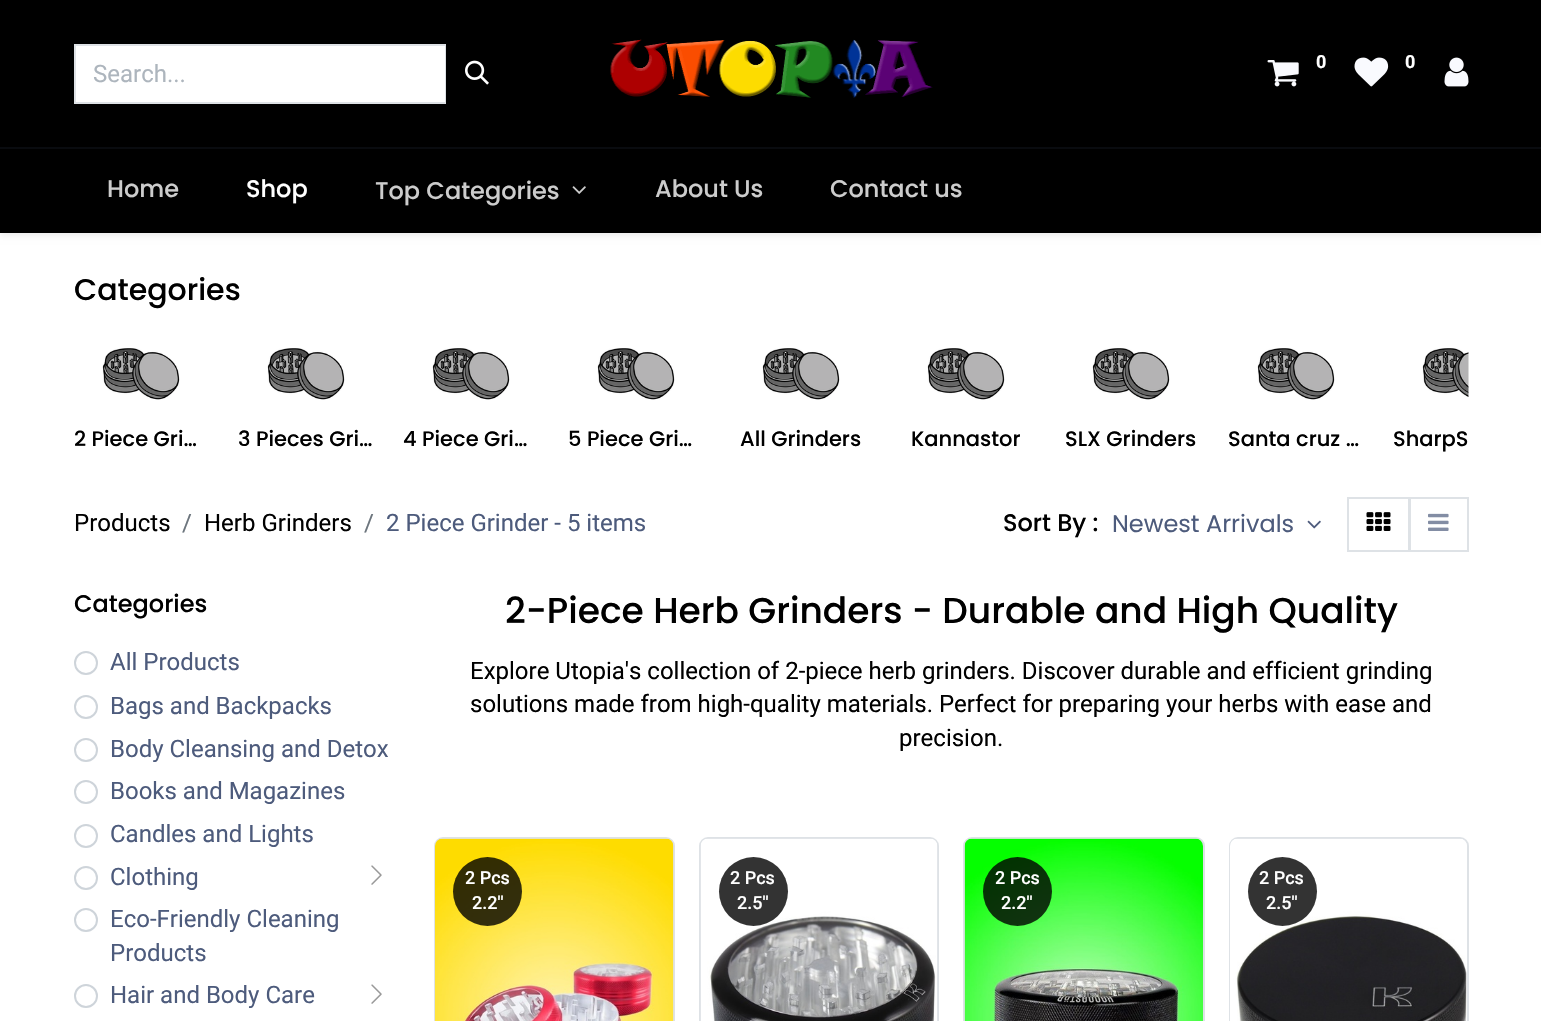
void draw(SkCanvas* canvas) {
    SkPaint paint;
    paint.setAntiAlias(true);
    auto face = [&](const char* family, int weight, float size, bool italic = false) {
        SkFontStyle style(weight, SkFontStyle::kNormal_Width,
            italic ? SkFontStyle::kItalic_Slant : SkFontStyle::kUpright_Slant);
        SkFont result(fontMgr->matchFamilyStyle(family, style), size);
        result.setSubpixel(true);
        return result;
    };
    auto write = [&](const char* s, float x, float y, const SkFont& font, SkColor color) {
        SkPaint ink(SkColor4f::FromColor(color));
        ink.setAntiAlias(true);
        canvas->drawString(s, x, y, font, ink);
    };
    auto block = [&](float x, float y, float w, float h, SkColor color) {
        SkPaint ink(SkColor4f::FromColor(color));
        ink.setAntiAlias(true);
        canvas->drawRect(SkRect::MakeXYWH(x, y, w, h), ink);
    };
    auto paste = [&](const char* path, float x, float y, float w, float h) {
        auto image = SkImages::DeferredFromEncodedData(SkData::MakeFromFileName(path));
        canvas->drawImageRect(image, SkRect::MakeXYWH(x, y, w, h), SkSamplingOptions());
    };
    canvas->clear(SK_ColorWHITE);
    block(0, 0, 1541, 147, SK_ColorBLACK);
    block(0, 147, 1541, 2, SkColorSetRGB(9, 11, 15));
    paste("pic1.png", 610, 39, 323, 59);
    paste("pic2.png", 1267, 60, 32, 27);
    auto kFont1 = face("Roboto", 700, 18);
    write("0", 1316, 68, kFont1, SK_ColorWHITE);
    paste("pic3.png", 1354, 57, 35, 30);
    write("0", 1405, 68, kFont1, SK_ColorWHITE);
    paste("pic4.png", 1444, 57, 25, 30);
    paint.setColor(SK_ColorWHITE);
    canvas->drawRect(SkRect::MakeXYWH(75, 45, 371, 58), paint);
    paint.setStyle(SkPaint::kStroke_Style);
    paint.setStrokeWidth(2);
    paint.setColor(SkColorSetRGB(222, 226, 230));
    canvas->drawRect(SkRect::MakeXYWH(75, 45, 371, 58), paint);
    auto kFont2 = face("Roboto", 400, 24);
    write("Search...", 93, 82, kFont2, SkColorSetRGB(173, 181, 189));
    block(446, 44, 1, 60, SK_ColorBLACK);
    paste("pic5.png", 465, 60, 24, 25);
    paint.setStyle(SkPaint::kFill_Style);
    paint.setColor(SkColorSetARGB(18, 0, 0, 0));
    paint.setMaskFilter(SkMaskFilter::MakeBlur(kNormal_SkBlurStyle, 3));
    canvas->drawRect(SkRect::MakeXYWH(0, 152, 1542, 84), paint);
    paint.setMaskFilter(nullptr);
    block(0, 149, 1541, 84, SK_ColorBLACK);
    auto kFont3 = face("Poppins", 500, 24);
    write("Home", 107, 197, kFont3, SkColorSetRGB(204, 204, 204));
    write("Shop", 246, 197, kFont3, SK_ColorWHITE);
    write("Top Categories", 375, 199, kFont3, SkColorSetRGB(204, 204, 204));
    paste("pic6.png", 572, 186, 14, 8);
    write("About Us", 655, 197, kFont3, SkColorSetRGB(204, 204, 204));
    write("Contact us", 830, 197, kFont3, SkColorSetRGB(204, 204, 204));
    auto kFont4 = face("Poppins", 500, 30);
    write("Categories", 74, 300, kFont4, SK_ColorBLACK);
    paste("pic7.png", 102, 348, 78, 52);
    auto kFont5 = face("Poppins", 500, 21);
    write("2 Piece Gri…", 74, 446, kFont5, SK_ColorBLACK);
    paste("pic7.png", 267, 348, 78, 52);
    write("3 Pieces Gri…", 238, 446, kFont5, SK_ColorBLACK);
    paste("pic7.png", 432, 348, 78, 52);
    write("4 Piece Gri…", 403, 446, kFont5, SK_ColorBLACK);
    paste("pic7.png", 597, 348, 78, 52);
    write("5 Piece Gri…", 568, 446, kFont5, SK_ColorBLACK);
    paste("pic7.png", 762, 348, 78, 52);
    write("All Grinders", 740, 446, kFont5, SK_ColorBLACK);
    paste("pic7.png", 927, 348, 78, 52);
    write("Kannastor", 911, 446, kFont5, SK_ColorBLACK);
    paste("pic7.png", 1092, 348, 78, 52);
    write("SLX Grinders", 1065, 446, kFont5, SK_ColorBLACK);
    paste("pic7.png", 1257, 348, 78, 52);
    write("Santa cruz …", 1228, 446, kFont5, SK_ColorBLACK);
    paste("pic8.png", 1422, 348, 47, 49);
    write("SharpS", 1393, 446, kFont5, SK_ColorBLACK);
    write("Products", 74, 531, kFont2, SK_ColorBLACK);
    write("/", 182, 531, kFont2, SkColorSetRGB(108, 117, 125));
    write("Herb Grinders", 204, 531, kFont2, SK_ColorBLACK);
    write("/", 364, 531, kFont2, SkColorSetRGB(108, 117, 125));
    write("2 Piece Grinder - 5 items", 386, 531, kFont2, SkColorSetRGB(77, 91, 124));
    write("Sort By :", 1003, 531, kFont3, SK_ColorBLACK);
    auto kFont6 = face("Poppins", 400, 24);
    write("Newest Arrivals", 1112, 532, kFont6, SkColorSetRGB(77, 91, 124));
    paste("pic9.png", 1307, 520, 14, 9);
    paint.setStyle(SkPaint::kStroke_Style);
    paint.setColor(SkColorSetRGB(222, 226, 230));
    canvas->drawRect(SkRect::MakeXYWH(1410, 498, 58, 53), paint);
    canvas->drawRect(SkRect::MakeXYWH(1348, 498, 61, 53), paint);
    paste("pic10.png", 1366, 512, 25, 19);
    paste("pic11.png", 1428, 513, 21, 18);
    write("Categories", 74, 612, kFont3, SK_ColorBLACK);
    paint.setColor(SkColorSetRGB(206, 212, 218));
    canvas->drawCircle(86, 663, 11, paint);
    write("All Products", 110, 670, kFont2, SkColorSetRGB(77, 91, 124));
    canvas->drawCircle(86, 707, 11, paint);
    write("Bags and Backpacks", 110, 714, kFont2, SkColorSetRGB(77, 91, 124));
    canvas->drawCircle(86, 750, 11, paint);
    write("Body Cleansing and Detox", 110, 757, kFont2, SkColorSetRGB(77, 91, 124));
    canvas->drawCircle(86, 792, 11, paint);
    write("Books and Magazines", 110, 799, kFont2, SkColorSetRGB(77, 91, 124));
    canvas->drawCircle(86, 836, 11, paint);
    write("Candles and Lights", 110, 842, kFont2, SkColorSetRGB(77, 91, 124));
    canvas->drawCircle(86, 878, 11, paint);
    write("Clothing", 110, 885, kFont2, SkColorSetRGB(77, 91, 124));
    paste("pic12.png", 371, 865, 11, 20);
    canvas->drawCircle(86, 920, 11, paint);
    write("Eco-Friendly Cleaning", 110, 927, kFont2, SkColorSetRGB(77, 91, 124));
    write("Products", 110, 961, kFont2, SkColorSetRGB(77, 91, 124));
    canvas->drawCircle(86, 996, 11, paint);
    write("Hair and Body Care", 110, 1003, kFont2, SkColorSetRGB(77, 91, 124));
    paste("pic13.png", 371, 984, 11, 20);
    auto kFont7 = face("Poppins", 500, 36);
    write("2-Piece Herb Grinders - Durable and High Quality", 505, 623, kFont7, SK_ColorBLACK);
    write("Explore Utopia's collection of 2-piece herb grinders. Discover durable and efficient grinding", 470, 679, kFont2, SK_ColorBLACK);
    write("solutions made from high-quality materials. Perfect for preparing your herbs with ease and", 470, 712, kFont2, SK_ColorBLACK);
    write("precision.", 899, 746, kFont2, SK_ColorBLACK);
    paint.setColor(SkColorSetRGB(222, 226, 230));
    canvas->drawRoundRect(SkRect::MakeXYWH(435, 838, 239, 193), 8, 8, paint);
    paste("pic14.png", 435, 838, 239, 183);
    paint.setStyle(SkPaint::kFill_Style);
    paint.setColor(SkColorSetARGB(204, 0, 0, 0));
    canvas->drawCircle(487.5f, 891.5f, 34.5f, paint);
    auto kFont8 = face("Roboto", 500, 18);
    write("2 Pcs", 465, 884, kFont8, SK_ColorWHITE);
    write("2.2''", 472, 909, kFont8, SK_ColorWHITE);
    paint.setStyle(SkPaint::kStroke_Style);
    paint.setColor(SkColorSetRGB(222, 226, 230));
    canvas->drawRoundRect(SkRect::MakeXYWH(700, 838, 238, 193), 8, 8, paint);
    paste("pic15.png", 700, 838, 238, 183);
    paint.setStyle(SkPaint::kFill_Style);
    paint.setColor(SkColorSetRGB(51, 51, 51));
    canvas->drawCircle(753.5f, 891.5f, 34.5f, paint);
    write("2 Pcs", 730, 884, kFont8, SK_ColorWHITE);
    write("2.5''", 737, 909, kFont8, SK_ColorWHITE);
    paint.setStyle(SkPaint::kStroke_Style);
    paint.setColor(SkColorSetRGB(222, 226, 230));
    canvas->drawRoundRect(SkRect::MakeXYWH(964, 838, 240, 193), 8, 8, paint);
    paste("pic16.png", 964, 838, 239, 183);
    paint.setStyle(SkPaint::kFill_Style);
    paint.setColor(SkColorSetARGB(204, 0, 0, 0));
    canvas->drawCircle(1017.5f, 891.5f, 34.5f, paint);
    write("2 Pcs", 995, 884, kFont8, SK_ColorWHITE);
    write("2.2''", 1001, 909, kFont8, SK_ColorWHITE);
    paint.setStyle(SkPaint::kStroke_Style);
    paint.setColor(SkColorSetRGB(222, 226, 230));
    canvas->drawRoundRect(SkRect::MakeXYWH(1230, 838, 238, 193), 8, 8, paint);
    paste("pic17.png", 1230, 838, 237, 183);
    paint.setStyle(SkPaint::kFill_Style);
    paint.setColor(SkColorSetARGB(204, 0, 0, 0));
    canvas->drawCircle(1282.5f, 891.5f, 34.5f, paint);
    write("2 Pcs", 1259, 884, kFont8, SK_ColorWHITE);
    write("2.5''", 1266, 909, kFont8, SK_ColorWHITE);
}
